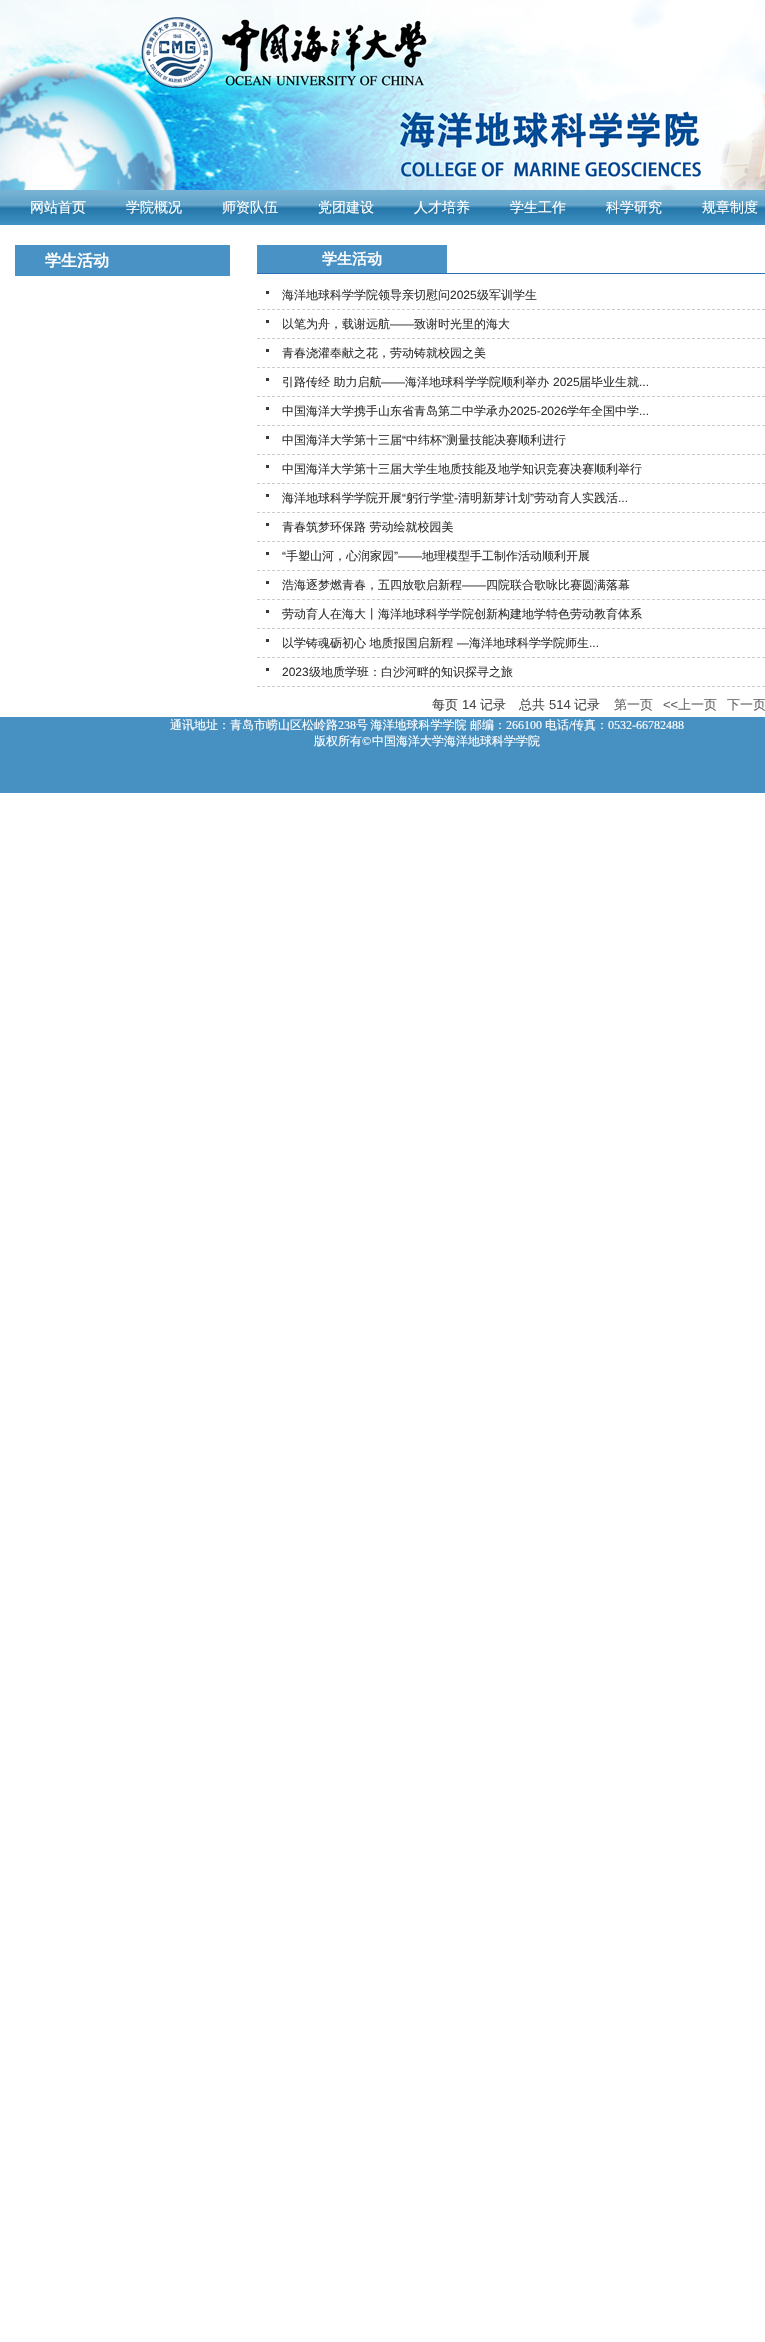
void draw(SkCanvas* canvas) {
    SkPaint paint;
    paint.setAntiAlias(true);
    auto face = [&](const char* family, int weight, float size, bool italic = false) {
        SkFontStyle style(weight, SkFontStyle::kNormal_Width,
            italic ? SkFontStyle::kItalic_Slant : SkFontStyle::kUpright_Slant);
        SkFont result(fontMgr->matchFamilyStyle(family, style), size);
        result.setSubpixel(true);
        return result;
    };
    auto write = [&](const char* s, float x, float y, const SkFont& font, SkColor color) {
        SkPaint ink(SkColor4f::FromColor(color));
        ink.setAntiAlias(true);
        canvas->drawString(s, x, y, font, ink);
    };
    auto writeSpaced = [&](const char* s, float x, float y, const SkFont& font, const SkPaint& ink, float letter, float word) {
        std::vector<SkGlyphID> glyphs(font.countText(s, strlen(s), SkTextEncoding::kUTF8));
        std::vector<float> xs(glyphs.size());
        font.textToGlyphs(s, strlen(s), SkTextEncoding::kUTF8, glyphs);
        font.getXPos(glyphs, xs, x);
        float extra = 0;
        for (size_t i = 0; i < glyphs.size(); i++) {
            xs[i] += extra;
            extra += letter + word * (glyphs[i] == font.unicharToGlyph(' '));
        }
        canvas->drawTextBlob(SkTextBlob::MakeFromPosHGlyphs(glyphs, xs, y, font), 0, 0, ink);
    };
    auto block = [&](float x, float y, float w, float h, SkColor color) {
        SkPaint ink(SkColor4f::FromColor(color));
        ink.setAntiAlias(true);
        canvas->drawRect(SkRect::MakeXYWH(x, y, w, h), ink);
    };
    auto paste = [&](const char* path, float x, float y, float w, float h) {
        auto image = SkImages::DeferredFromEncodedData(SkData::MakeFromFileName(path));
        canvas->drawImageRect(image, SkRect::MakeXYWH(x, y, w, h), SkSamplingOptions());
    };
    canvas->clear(SK_ColorWHITE);
    paste("pic1.png", 0, 0, 765, 190);
    paste("pic2.png", 0, 190, 765, 35);
    auto kFont1 = face("WenQuanYi Zen Hei", 500, 14);
    write("网站首页", 30, 212, kFont1, SK_ColorWHITE);
    write("学院概况", 126, 212, kFont1, SK_ColorWHITE);
    write("师资队伍", 222, 212, kFont1, SK_ColorWHITE);
    write("党团建设", 318, 212, kFont1, SK_ColorWHITE);
    write("人才培养", 414, 212, kFont1, SK_ColorWHITE);
    write("学生工作", 510, 212, kFont1, SK_ColorWHITE);
    write("科学研究", 606, 212, kFont1, SK_ColorWHITE);
    write("规章制度", 702, 212, kFont1, SK_ColorWHITE);
    block(15, 245, 215, 31, SkColorSetRGB(72, 146, 197));
    auto kFont2 = face("WenQuanYi Zen Hei", 700, 16);
    write("学生活动", 45, 266, kFont2, SK_ColorWHITE);
    block(257, 273, 508, 1, SkColorSetRGB(43, 111, 184));
    block(257, 245, 190, 28, SkColorSetRGB(72, 146, 197));
    auto kFont3 = face("WenQuanYi Zen Hei", 700, 15);
    write("学生活动", 322, 264, kFont3, SK_ColorWHITE);
    paint.setStyle(SkPaint::kStroke_Style);
    paint.setStrokeWidth(1);
    paint.setColor(SkColorSetRGB(204, 204, 204));
    paint.setPathEffect(SkDashPathEffect::Make({{3, 2}}, 0));
    canvas->drawPath(SkPathBuilder().moveTo(257, 309.5f).lineTo(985, 309.5f).detach(), paint);
    paint.setPathEffect(nullptr);
    block(266, 291, 3, 3, SkColorSetRGB(57, 57, 57));
    auto kFont4 = face("WenQuanYi Zen Hei", 500, 12);
    write("海洋地球科学学院领导亲切慰问", 282, 299, kFont4, SkColorSetRGB(51, 51, 51));
    auto kFont5 = face("Liberation Sans", 400, 12);
    write("2025", 450, 299, kFont5, SkColorSetRGB(51, 51, 51));
    write("级军训学生", 477, 299, kFont4, SkColorSetRGB(51, 51, 51));
    paint.setPathEffect(SkDashPathEffect::Make({{3, 2}}, 0));
    canvas->drawPath(SkPathBuilder().moveTo(257, 338.5f).lineTo(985, 338.5f).detach(), paint);
    paint.setPathEffect(nullptr);
    block(266, 320, 3, 3, SkColorSetRGB(57, 57, 57));
    write("以笔为舟，载谢远航", 282, 328, kFont4, SkColorSetRGB(51, 51, 51));
    write("——", 390, 328, kFont5, SkColorSetRGB(51, 51, 51));
    write("致谢时光里的海大", 414, 328, kFont4, SkColorSetRGB(51, 51, 51));
    paint.setPathEffect(SkDashPathEffect::Make({{3, 2}}, 0));
    canvas->drawPath(SkPathBuilder().moveTo(257, 367.5f).lineTo(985, 367.5f).detach(), paint);
    paint.setPathEffect(nullptr);
    block(266, 349, 3, 3, SkColorSetRGB(57, 57, 57));
    write("青春浇灌奉献之花，劳动铸就校园之美", 282, 357, kFont4, SkColorSetRGB(51, 51, 51));
    paint.setPathEffect(SkDashPathEffect::Make({{3, 2}}, 0));
    canvas->drawPath(SkPathBuilder().moveTo(257, 396.5f).lineTo(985, 396.5f).detach(), paint);
    paint.setPathEffect(nullptr);
    block(266, 378, 3, 3, SkColorSetRGB(57, 57, 57));
    write("引路传经 助力启航", 282, 386, kFont4, SkColorSetRGB(51, 51, 51));
    write("——", 381, 386, kFont5, SkColorSetRGB(51, 51, 51));
    write("海洋地球科学学院顺利举办", 405, 386, kFont4, SkColorSetRGB(51, 51, 51));
    write("2025", 553, 386, kFont5, SkColorSetRGB(51, 51, 51));
    write("届毕业生就", 579, 386, kFont4, SkColorSetRGB(51, 51, 51));
    write("...", 639, 386, kFont5, SkColorSetRGB(51, 51, 51));
    paint.setPathEffect(SkDashPathEffect::Make({{3, 2}}, 0));
    canvas->drawPath(SkPathBuilder().moveTo(257, 425.5f).lineTo(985, 425.5f).detach(), paint);
    paint.setPathEffect(nullptr);
    block(266, 407, 3, 3, SkColorSetRGB(57, 57, 57));
    write("中国海洋大学携手山东省青岛第二中学承办", 282, 415, kFont4, SkColorSetRGB(51, 51, 51));
    write("2025-2026", 510, 415, kFont5, SkColorSetRGB(51, 51, 51));
    write("学年全国中学", 567, 415, kFont4, SkColorSetRGB(51, 51, 51));
    write("...", 639, 415, kFont5, SkColorSetRGB(51, 51, 51));
    paint.setPathEffect(SkDashPathEffect::Make({{3, 2}}, 0));
    canvas->drawPath(SkPathBuilder().moveTo(257, 454.5f).lineTo(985, 454.5f).detach(), paint);
    paint.setPathEffect(nullptr);
    block(266, 436, 3, 3, SkColorSetRGB(57, 57, 57));
    write("中国海洋大学第十三届", 282, 444, kFont4, SkColorSetRGB(51, 51, 51));
    write("“", 402, 444, kFont5, SkColorSetRGB(51, 51, 51));
    write("中纬杯", 406, 444, kFont4, SkColorSetRGB(51, 51, 51));
    write("”", 442, 444, kFont5, SkColorSetRGB(51, 51, 51));
    write("测量技能决赛顺利进行", 446, 444, kFont4, SkColorSetRGB(51, 51, 51));
    paint.setPathEffect(SkDashPathEffect::Make({{3, 2}}, 0));
    canvas->drawPath(SkPathBuilder().moveTo(257, 483.5f).lineTo(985, 483.5f).detach(), paint);
    paint.setPathEffect(nullptr);
    block(266, 465, 3, 3, SkColorSetRGB(57, 57, 57));
    write("中国海洋大学第十三届大学生地质技能及地学知识竞赛决赛顺利举行", 282, 473, kFont4, SkColorSetRGB(51, 51, 51));
    paint.setPathEffect(SkDashPathEffect::Make({{3, 2}}, 0));
    canvas->drawPath(SkPathBuilder().moveTo(257, 512.5f).lineTo(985, 512.5f).detach(), paint);
    paint.setPathEffect(nullptr);
    block(266, 494, 3, 3, SkColorSetRGB(57, 57, 57));
    write("海洋地球科学学院开展", 282, 502, kFont4, SkColorSetRGB(51, 51, 51));
    write("“", 402, 502, kFont5, SkColorSetRGB(51, 51, 51));
    write("躬行学堂", 406, 502, kFont4, SkColorSetRGB(51, 51, 51));
    write("清明新芽计划", 458, 502, kFont4, SkColorSetRGB(51, 51, 51));
    write("”", 530, 502, kFont5, SkColorSetRGB(51, 51, 51));
    write("劳动育人实践活", 534, 502, kFont4, SkColorSetRGB(51, 51, 51));
    write("-", 454, 502, kFont5, SkColorSetRGB(51, 51, 51));
    write("...", 618, 502, kFont5, SkColorSetRGB(51, 51, 51));
    paint.setPathEffect(SkDashPathEffect::Make({{3, 2}}, 0));
    canvas->drawPath(SkPathBuilder().moveTo(257, 541.5f).lineTo(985, 541.5f).detach(), paint);
    paint.setPathEffect(nullptr);
    block(266, 523, 3, 3, SkColorSetRGB(57, 57, 57));
    write("青春筑梦环保路 劳动绘就校园美", 282, 531, kFont4, SkColorSetRGB(51, 51, 51));
    paint.setPathEffect(SkDashPathEffect::Make({{3, 2}}, 0));
    canvas->drawPath(SkPathBuilder().moveTo(257, 570.5f).lineTo(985, 570.5f).detach(), paint);
    paint.setPathEffect(nullptr);
    block(266, 552, 3, 3, SkColorSetRGB(57, 57, 57));
    write("“", 282, 560, kFont5, SkColorSetRGB(51, 51, 51));
    write("手塑山河，心润家园", 286, 560, kFont4, SkColorSetRGB(51, 51, 51));
    write("”——", 394, 560, kFont5, SkColorSetRGB(51, 51, 51));
    write("地理模型手工制作活动顺利开展", 422, 560, kFont4, SkColorSetRGB(51, 51, 51));
    paint.setPathEffect(SkDashPathEffect::Make({{3, 2}}, 0));
    canvas->drawPath(SkPathBuilder().moveTo(257, 599.5f).lineTo(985, 599.5f).detach(), paint);
    paint.setPathEffect(nullptr);
    block(266, 581, 3, 3, SkColorSetRGB(57, 57, 57));
    write("浩海逐梦燃青春，五四放歌启新程", 282, 589, kFont4, SkColorSetRGB(51, 51, 51));
    write("——", 462, 589, kFont5, SkColorSetRGB(51, 51, 51));
    write("四院联合歌咏比赛圆满落幕", 486, 589, kFont4, SkColorSetRGB(51, 51, 51));
    paint.setPathEffect(SkDashPathEffect::Make({{3, 2}}, 0));
    canvas->drawPath(SkPathBuilder().moveTo(257, 628.5f).lineTo(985, 628.5f).detach(), paint);
    paint.setPathEffect(nullptr);
    block(266, 610, 3, 3, SkColorSetRGB(57, 57, 57));
    write("劳动育人在海大丨海洋地球科学学院创新构建地学特色劳动教育体系", 282, 618, kFont4, SkColorSetRGB(51, 51, 51));
    paint.setPathEffect(SkDashPathEffect::Make({{3, 2}}, 0));
    canvas->drawPath(SkPathBuilder().moveTo(257, 657.5f).lineTo(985, 657.5f).detach(), paint);
    paint.setPathEffect(nullptr);
    block(266, 639, 3, 3, SkColorSetRGB(57, 57, 57));
    write("以学铸魂砺初心 地质报国启新程", 282, 647, kFont4, SkColorSetRGB(51, 51, 51));
    write("—", 457, 647, kFont5, SkColorSetRGB(51, 51, 51));
    write("海洋地球科学学院师生", 469, 647, kFont4, SkColorSetRGB(51, 51, 51));
    write("...", 589, 647, kFont5, SkColorSetRGB(51, 51, 51));
    paint.setPathEffect(SkDashPathEffect::Make({{3, 2}}, 0));
    canvas->drawPath(SkPathBuilder().moveTo(257, 686.5f).lineTo(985, 686.5f).detach(), paint);
    paint.setPathEffect(nullptr);
    block(266, 668, 3, 3, SkColorSetRGB(57, 57, 57));
    write("2023", 282, 676, kFont5, SkColorSetRGB(51, 51, 51));
    write("级地质学班：白沙河畔的知识探寻之旅", 309, 676, kFont4, SkColorSetRGB(51, 51, 51));
    auto kFont6 = face("WenQuanYi Zen Hei", 500, 13);
    write("每页", 432, 709, kFont6, SkColorSetRGB(73, 73, 73));
    auto kFont7 = face("Liberation Sans", 400, 13);
    write("14", 462, 709, kFont7, SkColorSetRGB(73, 73, 73));
    write("记录", 480, 709, kFont6, SkColorSetRGB(73, 73, 73));
    write("总共", 519, 709, kFont6, SkColorSetRGB(73, 73, 73));
    write("514", 549, 709, kFont7, SkColorSetRGB(73, 73, 73));
    write("记录", 574, 709, kFont6, SkColorSetRGB(73, 73, 73));
    write("第一页", 614, 709, kFont6, SkColorSetRGB(102, 102, 102));
    write("<<", 663, 709, kFont7, SkColorSetRGB(102, 102, 102));
    write("上一页", 678, 709, kFont6, SkColorSetRGB(102, 102, 102));
    write("下一页", 727, 709, kFont6, SkColorSetRGB(102, 102, 102));
    block(0, 717, 765, 76, SkColorSetRGB(71, 144, 194));
    write("通讯地址：青岛市崂山区松岭路", 170, 729, kFont4, SK_ColorWHITE);
    auto kFont8 = face("Liberation Serif", 400, 12);
    write("238", 338, 729, kFont8, SK_ColorWHITE);
    paint.setStyle(SkPaint::kFill_Style);
    paint.setColor(SK_ColorWHITE);
    writeSpaced("号 海洋地球科学学院", 356, 729, kFont4, paint, 0, -1);
    write("邮编：", 470, 729, kFont4, SK_ColorWHITE);
    write("266100", 506, 729, kFont8, SK_ColorWHITE);
    write("电话", 545, 729, kFont4, SK_ColorWHITE);
    write("/", 569, 729, kFont8, SK_ColorWHITE);
    write("传真：", 572, 729, kFont4, SK_ColorWHITE);
    write("0532-66782488", 608, 729, kFont8, SK_ColorWHITE);
    write("版权所有", 314, 745, kFont4, SK_ColorWHITE);
    write("©", 362, 745, kFont8, SK_ColorWHITE);
    write("中国海洋大学海洋地球科学学院", 372, 745, kFont4, SK_ColorWHITE);
}
